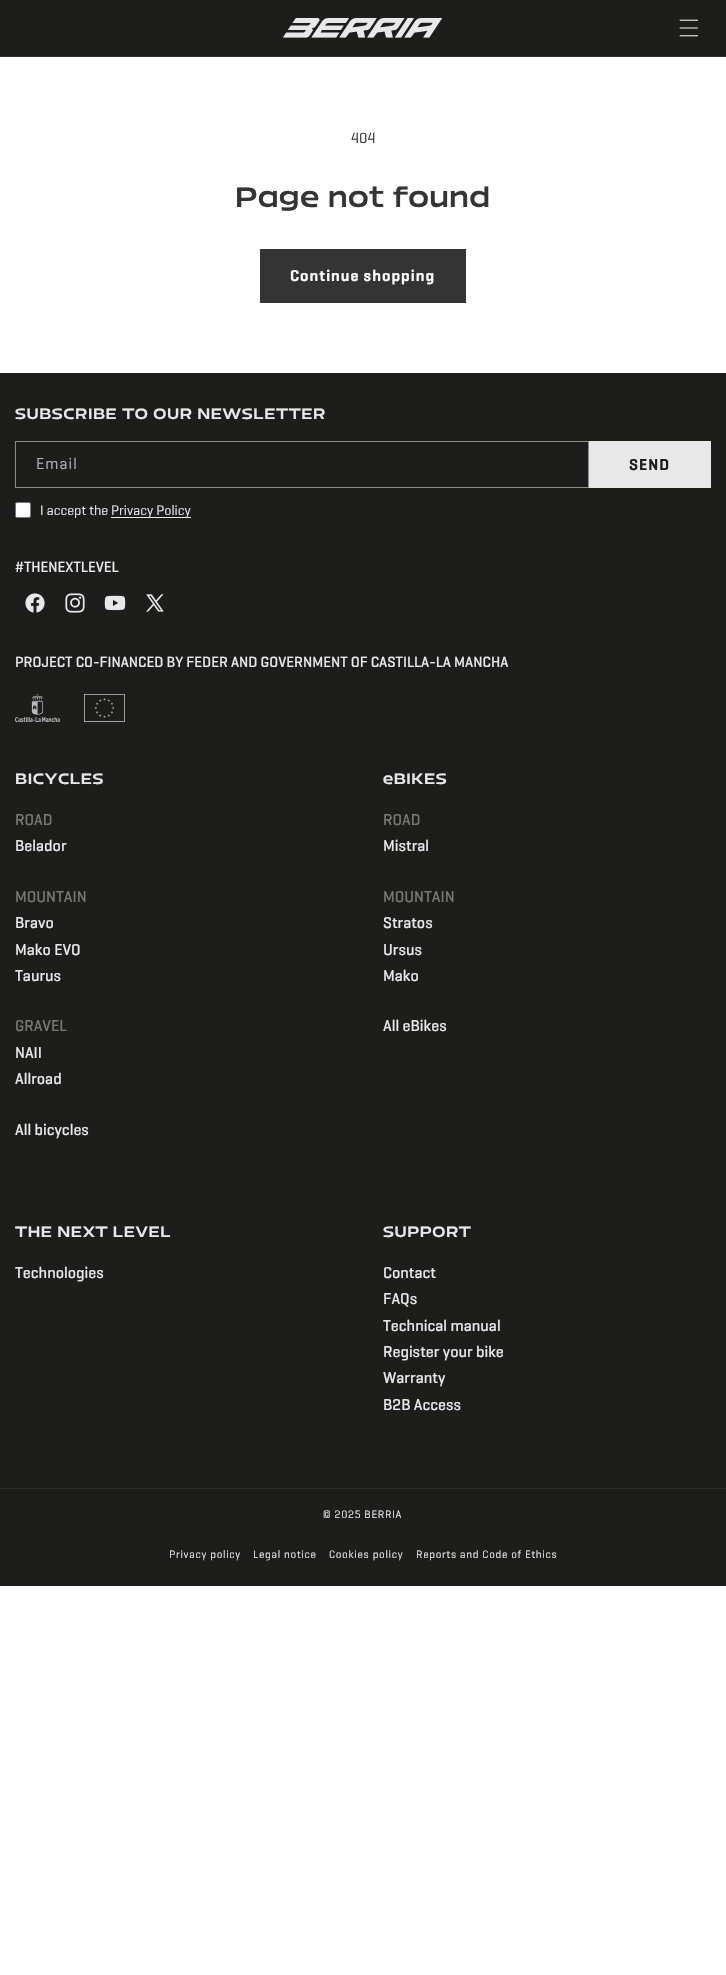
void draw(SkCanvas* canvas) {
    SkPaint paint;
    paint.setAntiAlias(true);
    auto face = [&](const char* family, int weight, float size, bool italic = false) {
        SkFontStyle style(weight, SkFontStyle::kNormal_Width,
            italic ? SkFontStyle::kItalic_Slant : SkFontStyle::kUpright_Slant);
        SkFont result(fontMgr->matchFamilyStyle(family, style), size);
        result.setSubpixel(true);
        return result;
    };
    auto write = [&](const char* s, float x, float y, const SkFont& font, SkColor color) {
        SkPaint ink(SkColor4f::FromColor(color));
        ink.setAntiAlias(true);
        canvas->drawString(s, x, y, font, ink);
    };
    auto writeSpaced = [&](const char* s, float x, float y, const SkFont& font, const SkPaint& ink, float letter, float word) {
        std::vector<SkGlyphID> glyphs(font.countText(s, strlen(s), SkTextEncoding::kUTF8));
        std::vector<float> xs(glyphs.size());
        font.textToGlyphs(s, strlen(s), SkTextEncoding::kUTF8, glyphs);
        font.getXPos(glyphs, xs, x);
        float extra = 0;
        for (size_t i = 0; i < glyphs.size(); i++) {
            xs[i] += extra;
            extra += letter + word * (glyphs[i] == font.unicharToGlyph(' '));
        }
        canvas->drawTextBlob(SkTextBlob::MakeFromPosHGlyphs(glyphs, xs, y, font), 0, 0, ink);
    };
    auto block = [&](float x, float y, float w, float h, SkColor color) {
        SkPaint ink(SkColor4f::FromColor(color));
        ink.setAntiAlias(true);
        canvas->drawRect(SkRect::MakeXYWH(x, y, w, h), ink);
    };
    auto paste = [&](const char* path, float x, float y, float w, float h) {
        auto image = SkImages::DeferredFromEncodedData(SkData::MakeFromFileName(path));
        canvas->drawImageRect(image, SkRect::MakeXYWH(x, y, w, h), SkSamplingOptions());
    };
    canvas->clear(SK_ColorWHITE);
    block(0, 0, 726, 56, SkColorSetRGB(29, 29, 27));
    block(0, 56, 726, 1, SkColorSetRGB(45, 45, 43));
    paste("pic1.png", 283, 18, 159, 20);
    paste("pic2.png", 679, 19, 20, 18);
    auto kFont1 = face("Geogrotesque", 400, 15);
    write("404", 351, 143, kFont1, SkColorSetRGB(52, 52, 52));
    auto kFont2 = face("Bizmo", 600, 30);
    paint.setColor(SkColorSetRGB(52, 52, 52));
    writeSpaced("Page not found", 235, 207, kFont2, paint, 0.6f, 0);
    block(260, 249, 206, 54, SkColorSetRGB(52, 52, 52));
    auto kFont3 = face("Geogrotesque", 600, 16);
    paint.setColor(SK_ColorWHITE);
    writeSpaced("Continue shopping", 290, 281, kFont3, paint, 1, 0);
    block(0, 373, 726, 1213, SkColorSetRGB(29, 29, 27));
    auto kFont4 = face("Bizmo", 600, 16);
    paint.setColor(SkColorSetRGB(232, 232, 232));
    writeSpaced("SUBSCRIBE TO OUR NEWSLETTER", 15, 419, kFont4, paint, 0.6f, 0);
    paint.setStyle(SkPaint::kStroke_Style);
    paint.setStrokeWidth(1);
    paint.setColor(SkColorSetRGB(141, 141, 140));
    canvas->drawRect(SkRect::MakeXYWH(15.5f, 441.5f, 573, 46), paint);
    auto kFont5 = face("Geogrotesque", 400, 16);
    paint.setStyle(SkPaint::kFill_Style);
    paint.setColor(SkColorSetRGB(181, 181, 181));
    writeSpaced("Email", 36, 469, kFont5, paint, 1, 0);
    block(589, 441, 122, 47, SkColorSetRGB(232, 232, 232));
    paint.setColor(SkColorSetRGB(29, 29, 27));
    writeSpaced("SEND", 629, 470, kFont3, paint, 1, 0);
    paint.setColor(SK_ColorWHITE);
    canvas->drawRoundRect(SkRect::MakeXYWH(15.5f, 502.5f, 15, 15), 1.5f, 1.5f, paint);
    paint.setStyle(SkPaint::kStroke_Style);
    paint.setColor(SkColorSetRGB(118, 118, 118));
    canvas->drawRoundRect(SkRect::MakeXYWH(15.5f, 502.5f, 15, 15), 1.5f, 1.5f, paint);
    auto kFont6 = face("Geogrotesque", 400, 14);
    write("I accept the", 40, 515, kFont6, SkColorSetRGB(232, 232, 232));
    block(111, 517, 80, 1, SkColorSetRGB(232, 232, 232));
    write("Privacy Policy", 111, 515, kFont6, SkColorSetRGB(232, 232, 232));
    auto kFont7 = face("Geogrotesque", 500, 15);
    write("#THENEXTLEVEL", 15, 572, kFont7, SkColorSetRGB(232, 232, 232));
    paste("pic3.png", 25, 593, 20, 20);
    paste("pic4.png", 65, 593, 20, 20);
    paste("pic5.png", 104, 595, 22, 16);
    paste("pic6.png", 146, 594, 18, 18);
    write("PROJECT CO-FINANCED BY FEDER AND GOVERNMENT OF CASTILLA-LA MANCHA", 15, 667, kFont7, SkColorSetRGB(232, 232, 232));
    paste("pic7.png", 15, 694, 45, 28);
    paste("pic8.png", 84, 694, 41, 28);
    paint.setStyle(SkPaint::kFill_Style);
    paint.setColor(SkColorSetRGB(232, 232, 232));
    writeSpaced("BICYCLES", 15, 784, kFont4, paint, 0.6f, 0);
    auto kFont8 = face("Geogrotesque", 500, 16);
    write("ROAD", 15, 825, kFont8, SkColorSetRGB(119, 119, 118));
    write("Belador", 15, 851, kFont8, SkColorSetRGB(232, 232, 232));
    write("MOUNTAIN", 15, 902, kFont8, SkColorSetRGB(119, 119, 118));
    write("Bravo", 15, 928, kFont8, SkColorSetRGB(232, 232, 232));
    write("Mako EVO", 15, 955, kFont8, SkColorSetRGB(232, 232, 232));
    write("Taurus", 15, 981, kFont8, SkColorSetRGB(232, 232, 232));
    write("GRAVEL", 15, 1031, kFont8, SkColorSetRGB(119, 119, 118));
    write("NAII", 15, 1058, kFont8, SkColorSetRGB(232, 232, 232));
    write("Allroad", 15, 1084, kFont8, SkColorSetRGB(232, 232, 232));
    write("All bicycles", 15, 1135, kFont8, SkColorSetRGB(232, 232, 232));
    writeSpaced("eBIKES", 383, 784, kFont4, paint, 0.6f, 0);
    write("ROAD", 383, 825, kFont8, SkColorSetRGB(119, 119, 118));
    write("Mistral", 383, 851, kFont8, SkColorSetRGB(232, 232, 232));
    write("MOUNTAIN", 383, 902, kFont8, SkColorSetRGB(119, 119, 118));
    write("Stratos", 383, 928, kFont8, SkColorSetRGB(232, 232, 232));
    write("Ursus", 383, 955, kFont8, SkColorSetRGB(232, 232, 232));
    write("Mako", 383, 981, kFont8, SkColorSetRGB(232, 232, 232));
    write("All eBikes", 383, 1031, kFont8, SkColorSetRGB(232, 232, 232));
    writeSpaced("THE NEXT LEVEL", 15, 1237, kFont4, paint, 0.6f, 0);
    write("Technologies", 15, 1278, kFont8, SkColorSetRGB(232, 232, 232));
    writeSpaced("SUPPORT", 383, 1237, kFont4, paint, 0.6f, 0);
    write("Contact", 383, 1278, kFont8, SkColorSetRGB(232, 232, 232));
    write("FAQs", 383, 1304, kFont8, SkColorSetRGB(232, 232, 232));
    write("Technical manual", 383, 1331, kFont8, SkColorSetRGB(232, 232, 232));
    write("Register your bike", 383, 1357, kFont8, SkColorSetRGB(232, 232, 232));
    write("Warranty", 383, 1383, kFont8, SkColorSetRGB(232, 232, 232));
    write("B2B Access", 383, 1410, kFont8, SkColorSetRGB(232, 232, 232));
    block(0, 1488, 726, 1, SkColorSetRGB(45, 45, 43));
    auto kFont9 = face("Geogrotesque", 400, 11);
    writeSpaced("© 2025 BERRIA", 323, 1518, kFont9, paint, 0.7f, 0);
    writeSpaced("Privacy policy", 169, 1558, kFont9, paint, 0.7f, 0);
    writeSpaced("Legal notice", 253, 1558, kFont9, paint, 0.7f, 0);
    writeSpaced("Cookies policy", 329, 1558, kFont9, paint, 0.7f, 0);
    writeSpaced("Reports and Code of Ethics", 416, 1558, kFont9, paint, 0.7f, 0);
}
